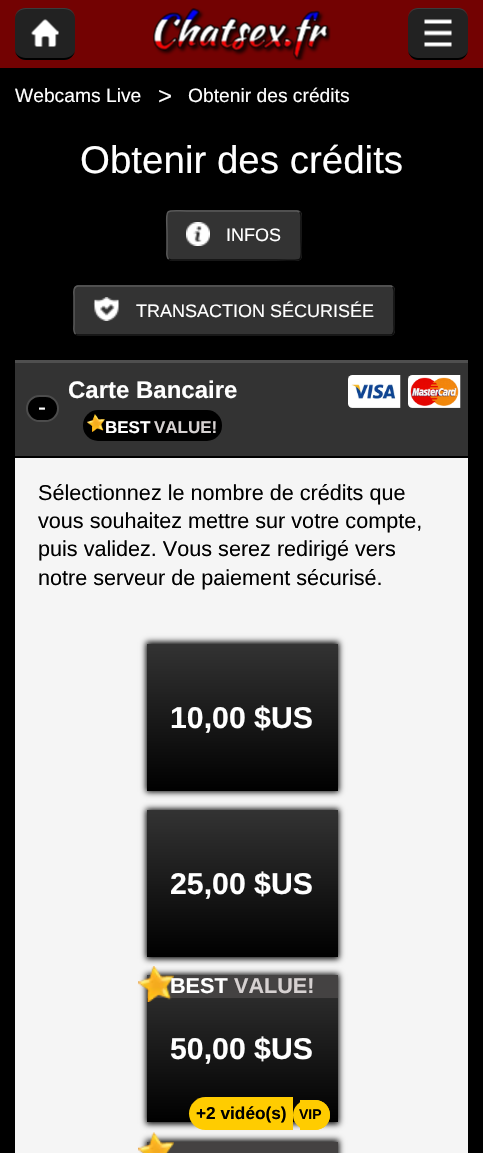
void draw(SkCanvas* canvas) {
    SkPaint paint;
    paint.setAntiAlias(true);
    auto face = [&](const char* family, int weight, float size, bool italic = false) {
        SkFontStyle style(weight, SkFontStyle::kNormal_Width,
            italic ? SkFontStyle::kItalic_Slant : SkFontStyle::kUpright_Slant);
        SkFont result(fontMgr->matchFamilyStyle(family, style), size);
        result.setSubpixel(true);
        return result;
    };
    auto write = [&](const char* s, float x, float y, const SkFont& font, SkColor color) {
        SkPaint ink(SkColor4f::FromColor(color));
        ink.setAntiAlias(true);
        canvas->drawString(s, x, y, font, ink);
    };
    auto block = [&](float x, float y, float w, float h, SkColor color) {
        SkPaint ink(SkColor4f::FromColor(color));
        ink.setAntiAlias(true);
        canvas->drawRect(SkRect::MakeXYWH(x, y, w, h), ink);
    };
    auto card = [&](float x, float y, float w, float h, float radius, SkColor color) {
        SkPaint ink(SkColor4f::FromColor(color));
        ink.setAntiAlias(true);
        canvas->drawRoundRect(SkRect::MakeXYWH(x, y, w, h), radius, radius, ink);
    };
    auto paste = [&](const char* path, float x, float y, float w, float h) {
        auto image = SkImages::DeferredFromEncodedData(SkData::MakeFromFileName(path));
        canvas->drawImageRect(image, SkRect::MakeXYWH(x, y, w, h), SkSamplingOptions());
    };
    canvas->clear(SK_ColorBLACK);
    block(0, 0, 483, 68, SkColorSetRGB(115, 2, 2));
    card(15, 8, 60, 52, 11, SkColorSetRGB(34, 34, 34));
    paint.setColor(SkColorSetRGB(60, 60, 60));
    canvas->drawPath(SkPathBuilder().moveTo(26, 8).cubicTo(20, 8, 15, 12, 15, 18).cubicTo(15, 13, 20, 9, 26, 9).lineTo(64, 9).cubicTo(70, 9, 75, 13, 75, 18).cubicTo(75, 12, 70, 8, 64, 8).close().detach(), paint);
    paint.setColor(SK_ColorBLACK);
    canvas->drawPath(SkPathBuilder().moveTo(64, 60).cubicTo(70, 60, 75, 55, 75, 50).cubicTo(75, 54, 70, 58, 64, 58).lineTo(26, 58).cubicTo(20, 58, 15, 54, 15, 50).cubicTo(15, 55, 20, 60, 26, 60).close().detach(), paint);
    paste("pic1.png", 31, 19, 28, 28);
    paste("pic2.png", 153, 8, 178, 53);
    card(408, 8, 60, 52, 11, SkColorSetRGB(34, 34, 34));
    paint.setColor(SkColorSetRGB(60, 60, 60));
    canvas->drawPath(SkPathBuilder().moveTo(418, 8).cubicTo(413, 8, 408, 12, 408, 18).cubicTo(408, 13, 413, 9, 418, 9).lineTo(458, 9).cubicTo(463, 9, 468, 13, 468, 18).cubicTo(468, 12, 463, 8, 458, 8).close().detach(), paint);
    paint.setColor(SK_ColorBLACK);
    canvas->drawPath(SkPathBuilder().moveTo(458, 60).cubicTo(463, 60, 468, 55, 468, 50).cubicTo(468, 54, 463, 58, 458, 58).lineTo(418, 58).cubicTo(413, 58, 408, 54, 408, 50).cubicTo(408, 55, 413, 60, 418, 60).close().detach(), paint);
    paste("pic3.png", 424, 19, 28, 28);
    auto kFont1 = face("Liberation Sans", 400, 19.25f);
    write("Webcams Live", 15, 102, kFont1, SK_ColorWHITE);
    auto kFont2 = face("Liberation Sans", 400, 24);
    write(">", 158, 104, kFont2, SK_ColorWHITE);
    write("Obtenir des crédits", 188, 102, kFont1, SK_ColorWHITE);
    auto kFont3 = face("Liberation Sans", 400, 38.5f);
    write("Obtenir des crédits", 80, 173, kFont3, SK_ColorWHITE);
    card(167, 210, 135, 51, 5, SkColorSetRGB(51, 51, 51));
    paint.setStyle(SkPaint::kStroke_Style);
    paint.setStrokeWidth(1.5f);
    paint.setColor(SkColorSetRGB(13, 13, 13));
    canvas->drawPath(SkPathBuilder().moveTo(299.5f, 212).cubicTo(302, 214, 301, 220, 301, 221.5f).lineTo(301, 235.5f).cubicTo(301, 265.5f, 306.5f, 260, 276, 260).lineTo(171, 260).lineTo(168.5f, 259).detach(), paint);
    paint.setColor(SkColorSetRGB(89, 89, 89));
    canvas->drawPath(SkPathBuilder().moveTo(168.5f, 259).cubicTo(166, 257, 167, 251, 167, 249.5f).lineTo(167, 235.5f).cubicTo(167, 205.5f, 161.5f, 211, 192, 211).lineTo(297, 211).lineTo(299.5f, 212).detach(), paint);
    paste("pic4.png", 186, 222, 24, 24);
    auto kFont4 = face("Liberation Sans", 400, 18);
    write("INFOS", 226, 241, kFont4, SK_ColorWHITE);
    card(74, 285, 321, 51, 5, SkColorSetRGB(51, 51, 51));
    paint.setColor(SkColorSetRGB(13, 13, 13));
    canvas->drawPath(SkPathBuilder().moveTo(392.5f, 287).cubicTo(395, 289, 394, 295, 394, 296.5f).lineTo(394, 324.5f).cubicTo(394, 327, 395.5f, 335, 390, 335).lineTo(77, 335).lineTo(75.5f, 334).detach(), paint);
    paint.setColor(SkColorSetRGB(89, 89, 89));
    canvas->drawPath(SkPathBuilder().moveTo(75.5f, 334).cubicTo(73, 332, 74, 326, 74, 324.5f).lineTo(74, 296.5f).cubicTo(74, 294, 72.5f, 286, 78, 286).lineTo(391, 286).lineTo(392.5f, 287).detach(), paint);
    paste("pic5.png", 93, 297, 27, 24);
    write("TRANSACTION SÉCURISÉE", 136, 317, kFont4, SK_ColorWHITE);
    block(15, 363, 453, 93, SkColorSetRGB(51, 51, 51));
    block(15, 360, 453, 3, SkColorSetRGB(79, 79, 79));
    paint.setStyle(SkPaint::kFill_Style);
    paint.setColor(SK_ColorBLACK);
    canvas->drawRoundRect(SkRect::MakeXYWH(27, 396, 31, 25), 12.5f, 12.5f, paint);
    paint.setStyle(SkPaint::kStroke_Style);
    paint.setStrokeWidth(2);
    paint.setColor(SkColorSetRGB(76, 76, 76));
    canvas->drawRoundRect(SkRect::MakeXYWH(27, 396, 31, 25), 12.5f, 12.5f, paint);
    write("-", 38, 415, kFont2, SK_ColorWHITE);
    auto kFont5 = face("Liberation Sans", 700, 24);
    write("Carte Bancaire", 68, 398, kFont5, SK_ColorWHITE);
    card(83, 410, 139, 31, 15, SK_ColorBLACK);
    paste("pic6.png", 87, 414, 18, 18);
    auto kFont6 = face("Liberation Sans", 700, 17);
    write("BEST", 105, 433, kFont6, SK_ColorWHITE);
    write("VALUE!", 154, 433, kFont6, SkColorSetRGB(214, 209, 209));
    paste("pic7.png", 348, 375, 53, 33);
    paste("pic8.png", 408, 375, 53, 33);
    block(15, 458, 453, 695, SkColorSetRGB(245, 245, 245));
    auto kFont7 = face("Liberation Sans", 400, 21.6f);
    write("Sélectionnez le nombre de crédits que", 38, 500, kFont7, SK_ColorBLACK);
    write("vous souhaitez mettre sur votre compte,", 38, 528, kFont7, SK_ColorBLACK);
    write("puis validez. Vous serez redirigé vers", 38, 556, kFont7, SK_ColorBLACK);
    write("notre serveur de paiement sécurisé.", 38, 585, kFont7, SK_ColorBLACK);
    paint.setStyle(SkPaint::kFill_Style);
    paint.setColor(SK_ColorBLACK);
    paint.setMaskFilter(SkMaskFilter::MakeBlur(kNormal_SkBlurStyle, 3));
    canvas->drawRect(SkRect::MakeXYWH(146, 642, 193, 150), paint);
    paint.setMaskFilter(nullptr);
    {
        const SkColor colors[] = {SkColorSetRGB(51, 51, 51), SK_ColorBLACK};
        const float stops[] = {0, 1};
        const SkPoint ends[] = {{242, 644}, {242, 791}};
        paint.setShader(SkGradientShader::MakeLinear(ends, colors, stops, 2, SkTileMode::kClamp));
        paint.setAlpha(255);
    }
    canvas->drawRect(SkRect::MakeXYWH(147, 644, 191, 147), paint);
    auto kFont8 = face("Liberation Sans", 700, 30.25f);
    write("10,00 $US", 170, 728, kFont8, SK_ColorWHITE);
    paint.setShader(nullptr);
    paint.setColor(SK_ColorBLACK);
    paint.setMaskFilter(SkMaskFilter::MakeBlur(kNormal_SkBlurStyle, 3));
    canvas->drawRect(SkRect::MakeXYWH(146, 809, 193, 150), paint);
    paint.setMaskFilter(nullptr);
    {
        const SkColor colors[] = {SkColorSetRGB(51, 51, 51), SK_ColorBLACK};
        const float stops[] = {0, 1};
        const SkPoint ends[] = {{242, 810}, {242, 957}};
        paint.setShader(SkGradientShader::MakeLinear(ends, colors, stops, 2, SkTileMode::kClamp));
        paint.setAlpha(255);
    }
    canvas->drawRect(SkRect::MakeXYWH(147, 810, 191, 147), paint);
    write("25,00 $US", 170, 894, kFont8, SK_ColorWHITE);
    paint.setShader(nullptr);
    paint.setColor(SK_ColorBLACK);
    paint.setMaskFilter(SkMaskFilter::MakeBlur(kNormal_SkBlurStyle, 3));
    canvas->drawRect(SkRect::MakeXYWH(146, 974, 193, 150), paint);
    paint.setMaskFilter(nullptr);
    {
        const SkColor colors[] = {SkColorSetRGB(51, 51, 51), SK_ColorBLACK};
        const float stops[] = {0, 1};
        const SkPoint ends[] = {{242, 975}, {242, 1122}};
        paint.setShader(SkGradientShader::MakeLinear(ends, colors, stops, 2, SkTileMode::kClamp));
        paint.setAlpha(255);
    }
    canvas->drawRect(SkRect::MakeXYWH(147, 998, 191, 124), paint);
    block(147, 975, 191, 23, SkColorSetRGB(68, 66, 66));
    paste("pic9.png", 138, 966, 36, 36);
    auto kFont9 = face("Liberation Sans", 700, 21.6f);
    write("BEST", 170, 993, kFont9, SK_ColorWHITE);
    write("VALUE!", 234, 993, kFont9, SkColorSetRGB(214, 209, 209));
    write("50,00 $US", 170, 1059, kFont8, SK_ColorWHITE);
    paint.setShader(nullptr);
    paint.setColor(SkColorSetRGB(255, 204, 0));
    canvas->drawPath(SkPathBuilder().moveTo(205.5f, 1097).lineTo(293, 1097).lineTo(293, 1130).lineTo(205.5f, 1130).cubicTo(196.5f, 1130, 189, 1122.5f, 189, 1113.5f).cubicTo(189, 1104.5f, 196.5f, 1097, 205.5f, 1097).close().detach(), paint);
    auto kFont10 = face("Liberation Sans", 700, 17.25f);
    write("+2 vidéo(s)", 196, 1119, kFont10, SK_ColorBLACK);
    canvas->drawPath(SkPathBuilder().moveTo(300, 1100).lineTo(315, 1100).cubicTo(323.5f, 1100, 330, 1106.5f, 330, 1115).cubicTo(330, 1123.5f, 323.5f, 1130, 315, 1130).lineTo(300, 1130).close().detach(), paint);
    card(293, 1100, 37, 30, 15, SkColorSetRGB(255, 204, 0));
    auto kFont11 = face("Liberation Sans", 700, 14);
    write("VIP", 299, 1119, kFont11, SK_ColorBLACK);
    paint.setColor(SK_ColorBLACK);
    paint.setMaskFilter(SkMaskFilter::MakeBlur(kNormal_SkBlurStyle, 3));
    canvas->drawRect(SkRect::MakeXYWH(146, 1140, 193, 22), paint);
    paint.setMaskFilter(nullptr);
    block(147, 1142, 191, 11, SkColorSetRGB(68, 66, 66));
    paste("pic10.png", 138, 1132, 36, 21);
}
